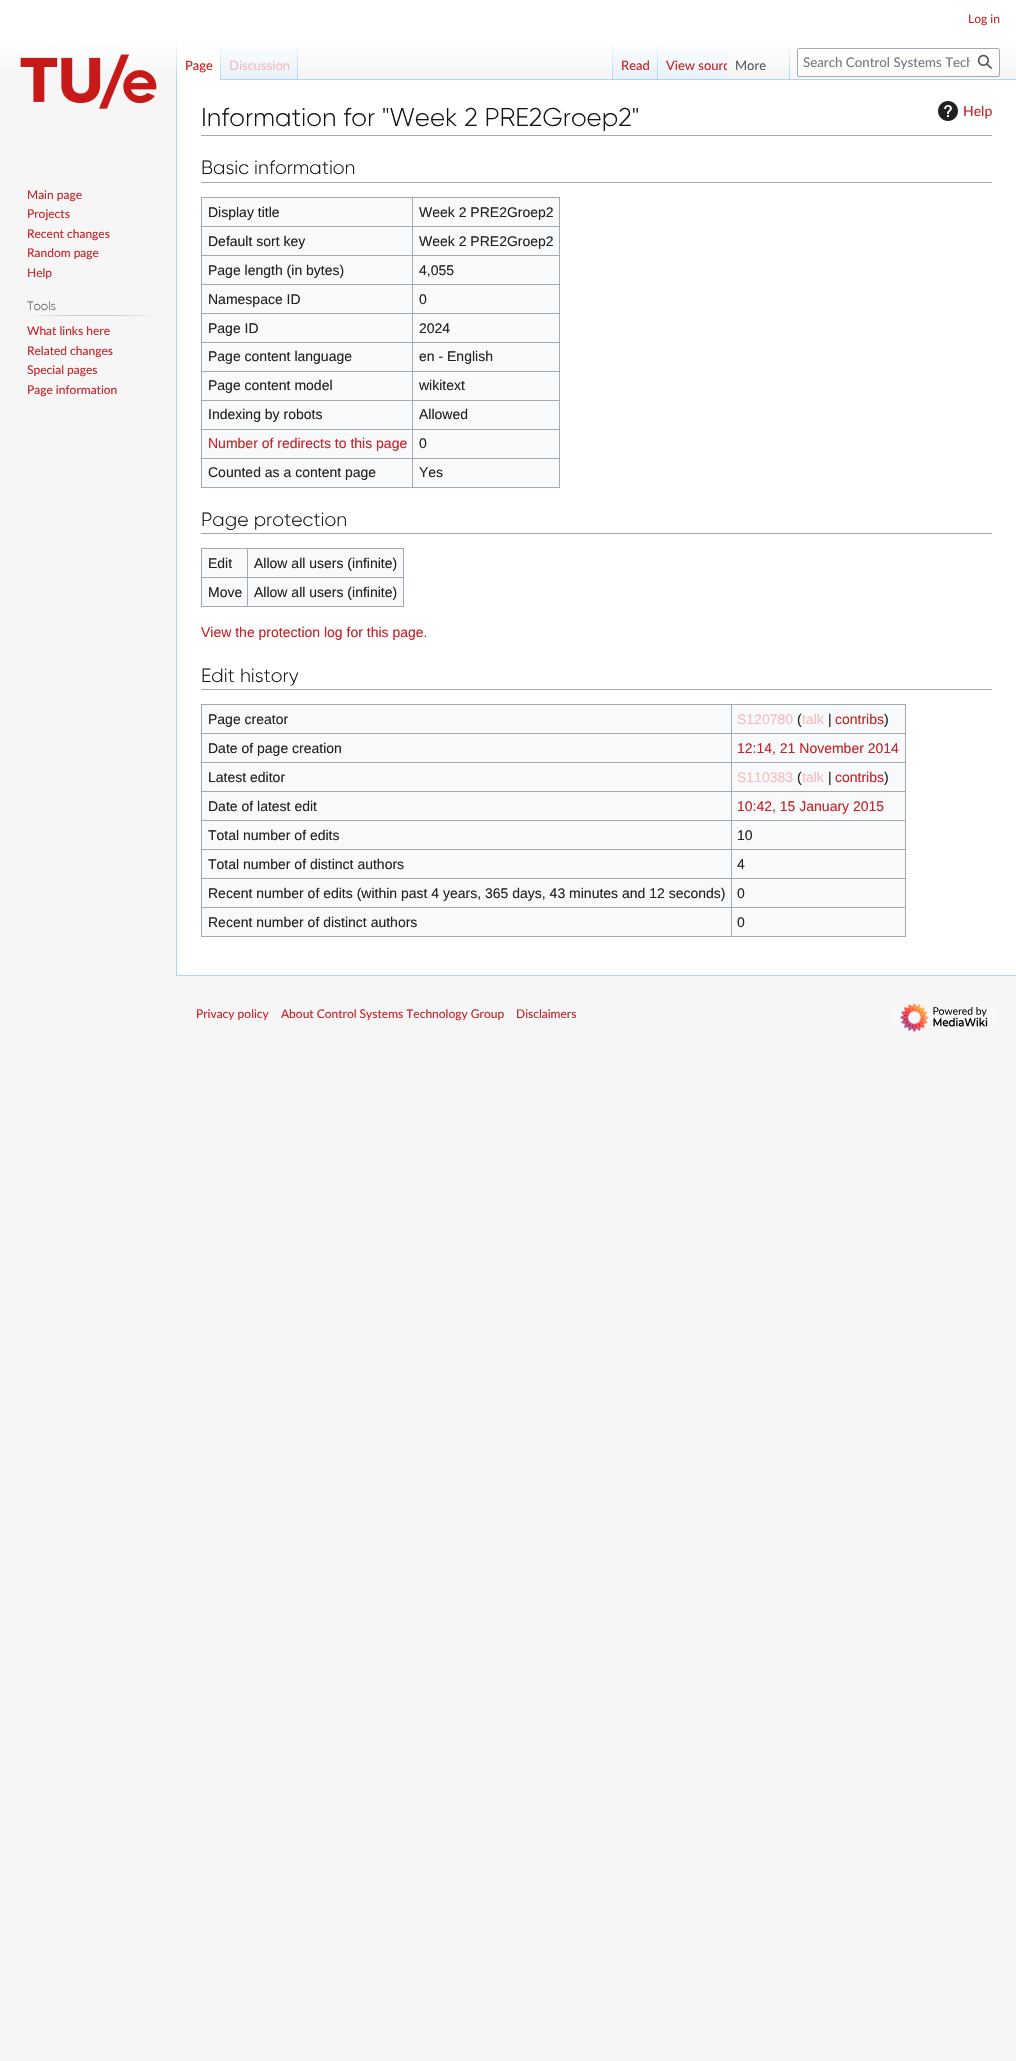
void draw(SkCanvas* canvas) {
    SkPaint paint;
    paint.setAntiAlias(true);
    auto face = [&](const char* family, int weight, float size, bool italic = false) {
        SkFontStyle style(weight, SkFontStyle::kNormal_Width,
            italic ? SkFontStyle::kItalic_Slant : SkFontStyle::kUpright_Slant);
        SkFont result(fontMgr->matchFamilyStyle(family, style), size);
        result.setSubpixel(true);
        return result;
    };
    auto write = [&](const char* s, float x, float y, const SkFont& font, SkColor color) {
        SkPaint ink(SkColor4f::FromColor(color));
        ink.setAntiAlias(true);
        canvas->drawString(s, x, y, font, ink);
    };
    auto block = [&](float x, float y, float w, float h, SkColor color) {
        SkPaint ink(SkColor4f::FromColor(color));
        ink.setAntiAlias(true);
        canvas->drawRect(SkRect::MakeXYWH(x, y, w, h), ink);
    };
    auto paste = [&](const char* path, float x, float y, float w, float h) {
        auto image = SkImages::DeferredFromEncodedData(SkData::MakeFromFileName(path));
        canvas->drawImageRect(image, SkRect::MakeXYWH(x, y, w, h), SkSamplingOptions());
    };
    canvas->clear(SkColorSetRGB(246, 246, 246));
    {
        const SkColor colors[] = {SK_ColorWHITE, SkColorSetRGB(246, 246, 246)};
        const float stops[] = {0.5f, 1};
        const SkPoint ends[] = {{508, 0}, {508, 80}};
        paint.setShader(SkGradientShader::MakeLinear(ends, colors, stops, 2, SkTileMode::kClamp));
        paint.setAlpha(255);
    }
    canvas->drawRect(SkRect::MakeXYWH(0, 0, 1016, 69), paint);
    auto kFont1 = face("Lato", 400, 12);
    write("Log in", 968, 23, kFont1, SkColorSetRGB(199, 33, 37));
    block(176, 975, 840, 1, SkColorSetRGB(167, 215, 249));
    block(176, 79, 1, 897, SkColorSetRGB(167, 215, 249));
    {
        const SkColor colors[] = {SkColorSetARGB(0, 167, 215, 249), SkColorSetRGB(167, 215, 249)};
        const float stops[] = {0, 1};
        const SkPoint ends[] = {{177, 40}, {177, 80}};
        paint.setShader(SkGradientShader::MakeLinear(ends, colors, stops, 2, SkTileMode::kClamp));
        paint.setAlpha(255);
    }
    canvas->drawRect(SkRect::MakeXYWH(176, 40, 1, 40), paint);
    block(177, 51, 43, 29, SK_ColorWHITE);
    {
        const SkColor colors[] = {SK_ColorWHITE, SkColorSetRGB(167, 215, 249)};
        const float stops[] = {0, 1};
        const SkPoint ends[] = {{221, 40}, {221, 80}};
        paint.setShader(SkGradientShader::MakeLinear(ends, colors, stops, 2, SkTileMode::kClamp));
        paint.setAlpha(255);
    }
    canvas->drawRect(SkRect::MakeXYWH(220, 40, 1, 40), paint);
    auto kFont2 = face("Lato", 400, 13);
    write("Page", 185, 70, kFont2, SkColorSetRGB(199, 33, 37));
    {
        const SkColor colors[] = {SkColorSetRGB(119, 193, 246), SkColorSetRGB(232, 242, 248), SK_ColorWHITE};
        const float stops[] = {0, 0.03f, 1};
        const SkPoint ends[] = {{260, 80}, {260, 40}};
        paint.setShader(SkGradientShader::MakeLinear(ends, colors, stops, 3, SkTileMode::kClamp));
        paint.setAlpha(255);
    }
    canvas->drawRect(SkRect::MakeXYWH(221, 46, 77, 34), paint);
    {
        const SkColor colors[] = {SkColorSetARGB(0, 167, 215, 249), SkColorSetRGB(167, 215, 249)};
        const float stops[] = {0, 1};
        const SkPoint ends[] = {{298, 40}, {298, 80}};
        paint.setShader(SkGradientShader::MakeLinear(ends, colors, stops, 2, SkTileMode::kClamp));
        paint.setAlpha(255);
    }
    canvas->drawRect(SkRect::MakeXYWH(297, 40, 1, 40), paint);
    write("Discussion", 229, 70, kFont2, SkColorSetRGB(245, 189, 191));
    block(298, 79, 718, 1, SkColorSetRGB(167, 215, 249));
    {
        const SkColor colors[] = {SkColorSetARGB(0, 167, 215, 249), SkColorSetRGB(167, 215, 249)};
        const float stops[] = {0, 1};
        const SkPoint ends[] = {{613, 40}, {613, 80}};
        paint.setShader(SkGradientShader::MakeLinear(ends, colors, stops, 2, SkTileMode::kClamp));
        paint.setAlpha(255);
    }
    canvas->drawRect(SkRect::MakeXYWH(612, 40, 1, 40), paint);
    {
        const SkColor colors[] = {SkColorSetRGB(119, 193, 246), SkColorSetRGB(232, 242, 248), SK_ColorWHITE};
        const float stops[] = {0, 0.03f, 1};
        const SkPoint ends[] = {{636, 80}, {636, 40}};
        paint.setShader(SkGradientShader::MakeLinear(ends, colors, stops, 3, SkTileMode::kClamp));
        paint.setAlpha(255);
    }
    canvas->drawRect(SkRect::MakeXYWH(613, 46, 45, 33), paint);
    {
        const SkColor colors[] = {SkColorSetARGB(0, 167, 215, 249), SkColorSetRGB(167, 215, 249)};
        const float stops[] = {0, 1};
        const SkPoint ends[] = {{658, 40}, {658, 80}};
        paint.setShader(SkGradientShader::MakeLinear(ends, colors, stops, 2, SkTileMode::kClamp));
        paint.setAlpha(255);
    }
    canvas->drawRect(SkRect::MakeXYWH(657, 40, 1, 40), paint);
    write("Read", 621, 70, kFont2, SkColorSetRGB(199, 33, 37));
    {
        const SkColor colors[] = {SkColorSetRGB(119, 193, 246), SkColorSetRGB(232, 242, 248), SK_ColorWHITE};
        const float stops[] = {0, 0.03f, 1};
        const SkPoint ends[] = {{693, 80}, {693, 40}};
        paint.setShader(SkGradientShader::MakeLinear(ends, colors, stops, 3, SkTileMode::kClamp));
        paint.setAlpha(255);
    }
    canvas->drawRect(SkRect::MakeXYWH(658, 46, 69, 33), paint);
    canvas->save();
    canvas->clipRect(SkRect::MakeXYWH(658, 40, 69, 40));
    write("View sourc", 666, 70, kFont2, SkColorSetRGB(199, 33, 37));
    canvas->restore();
    {
        const SkColor colors[] = {SkColorSetARGB(0, 167, 215, 249), SkColorSetRGB(167, 215, 249)};
        const float stops[] = {0, 1};
        const SkPoint ends[] = {{790, 40}, {790, 80}};
        paint.setShader(SkGradientShader::MakeLinear(ends, colors, stops, 2, SkTileMode::kClamp));
        paint.setAlpha(255);
    }
    canvas->drawRect(SkRect::MakeXYWH(789, 40, 1, 40), paint);
    write("More", 735, 70, kFont2, SkColorSetRGB(84, 89, 93));
    paint.setShader(nullptr);
    paint.setColor(SkColorSetARGB(128, 255, 255, 255));
    canvas->drawRoundRect(SkRect::MakeXYWH(797.5f, 48.5f, 202, 28), 1.5f, 1.5f, paint);
    paint.setStyle(SkPaint::kStroke_Style);
    paint.setStrokeWidth(1);
    paint.setColor(SkColorSetRGB(162, 169, 177));
    canvas->drawRoundRect(SkRect::MakeXYWH(797.5f, 48.5f, 202, 28), 1.5f, 1.5f, paint);
    canvas->save();
    canvas->clipRect(SkRect::MakeXYWH(803, 54, 167, 16));
    auto kFont3 = face("Lato", 400, 13.3f);
    write("Search Control Systems Tech", 803, 67, kFont3, SkColorSetRGB(114, 119, 125));
    canvas->restore();
    paste("pic1.png", 977, 54, 15, 15);
    paste("pic2.png", 20, 54, 137, 55);
    write("Main page", 27, 199, kFont1, SkColorSetRGB(199, 33, 37));
    write("Projects", 27, 218, kFont1, SkColorSetRGB(199, 33, 37));
    write("Recent changes", 27, 238, kFont1, SkColorSetRGB(199, 33, 37));
    write("Random page", 27, 257, kFont1, SkColorSetRGB(199, 33, 37));
    write("Help", 27, 277, kFont1, SkColorSetRGB(199, 33, 37));
    paint.setStyle(SkPaint::kFill_Style);
    {
        const SkColor colors[] = {SkColorSetRGB(246, 246, 246), SkColorSetRGB(200, 204, 209), SkColorSetRGB(200, 204, 209), SkColorSetRGB(246, 246, 246)};
        const float stops[] = {0, 0.33f, 0.66f, 1};
        const SkPoint ends[] = {{27, 316}, {158, 316}};
        paint.setShader(SkGradientShader::MakeLinear(ends, colors, stops, 4, SkTileMode::kClamp));
        paint.setAlpha(255);
    }
    canvas->drawRect(SkRect::MakeXYWH(27, 315, 131, 1), paint);
    auto kFont4 = face("Gilroy", 300, 12);
    write("Tools", 27, 310, kFont4, SkColorSetRGB(84, 89, 93));
    write("What links here", 27, 335, kFont1, SkColorSetRGB(199, 33, 37));
    write("Related changes", 27, 355, kFont1, SkColorSetRGB(199, 33, 37));
    write("Special pages", 27, 374, kFont1, SkColorSetRGB(199, 33, 37));
    write("Page information", 27, 394, kFont1, SkColorSetRGB(199, 33, 37));
    block(177, 80, 839, 895, SK_ColorWHITE);
    block(201, 135, 791, 1, SkColorSetRGB(162, 169, 177));
    auto kFont5 = face("Gilroy", 300, 25.6f);
    write("Information for \"Week 2 PRE2Groep2\"", 201, 126, kFont5, SkColorSetRGB(16, 20, 24));
    paste("pic3.png", 938, 101, 20, 20);
    auto kFont6 = face("Lato", 400, 14);
    write("Help", 963, 116, kFont6, SkColorSetRGB(199, 33, 37));
    block(201, 182, 791, 1, SkColorSetRGB(162, 169, 177));
    auto kFont7 = face("Gilroy", 300, 19.25f);
    write("Basic information", 201, 174, kFont7, SkColorSetRGB(16, 20, 24));
    block(202, 198, 357, 289, SkColorSetRGB(248, 249, 250));
    block(201, 197, 359, 1, SkColorSetRGB(162, 169, 177));
    block(559, 197, 1, 291, SkColorSetRGB(162, 169, 177));
    block(201, 487, 359, 1, SkColorSetRGB(162, 169, 177));
    block(201, 197, 1, 291, SkColorSetRGB(162, 169, 177));
    auto kFont8 = face("Liberation Sans", 400, 14);
    write("Display title", 208, 217, kFont8, SkColorSetRGB(32, 33, 34));
    block(412, 226, 148, 1, SkColorSetRGB(162, 169, 177));
    block(412, 255, 148, 1, SkColorSetRGB(162, 169, 177));
    block(412, 284, 148, 1, SkColorSetRGB(162, 169, 177));
    block(412, 313, 148, 1, SkColorSetRGB(162, 169, 177));
    block(412, 342, 148, 1, SkColorSetRGB(162, 169, 177));
    block(412, 371, 148, 1, SkColorSetRGB(162, 169, 177));
    block(412, 400, 148, 1, SkColorSetRGB(162, 169, 177));
    block(412, 429, 148, 1, SkColorSetRGB(162, 169, 177));
    block(412, 458, 148, 1, SkColorSetRGB(162, 169, 177));
    block(412, 458, 1, 30, SkColorSetRGB(162, 169, 177));
    block(201, 458, 212, 1, SkColorSetRGB(162, 169, 177));
    block(412, 429, 1, 30, SkColorSetRGB(162, 169, 177));
    block(201, 429, 212, 1, SkColorSetRGB(162, 169, 177));
    block(412, 400, 1, 30, SkColorSetRGB(162, 169, 177));
    block(201, 400, 212, 1, SkColorSetRGB(162, 169, 177));
    block(412, 371, 1, 30, SkColorSetRGB(162, 169, 177));
    block(201, 371, 212, 1, SkColorSetRGB(162, 169, 177));
    block(412, 342, 1, 30, SkColorSetRGB(162, 169, 177));
    block(201, 342, 212, 1, SkColorSetRGB(162, 169, 177));
    block(412, 313, 1, 30, SkColorSetRGB(162, 169, 177));
    block(201, 313, 212, 1, SkColorSetRGB(162, 169, 177));
    block(412, 284, 1, 30, SkColorSetRGB(162, 169, 177));
    block(201, 284, 212, 1, SkColorSetRGB(162, 169, 177));
    block(412, 255, 1, 30, SkColorSetRGB(162, 169, 177));
    block(201, 255, 212, 1, SkColorSetRGB(162, 169, 177));
    block(412, 226, 1, 30, SkColorSetRGB(162, 169, 177));
    block(201, 226, 212, 1, SkColorSetRGB(162, 169, 177));
    block(412, 197, 1, 30, SkColorSetRGB(162, 169, 177));
    write("Week 2 PRE2Groep2", 419, 217, kFont8, SkColorSetRGB(32, 33, 34));
    write("Default sort key", 208, 246, kFont8, SkColorSetRGB(32, 33, 34));
    write("Week 2 PRE2Groep2", 419, 246, kFont8, SkColorSetRGB(32, 33, 34));
    write("Page length (in bytes)", 208, 275, kFont8, SkColorSetRGB(32, 33, 34));
    write("4,055", 419, 275, kFont8, SkColorSetRGB(32, 33, 34));
    write("Namespace ID", 208, 304, kFont8, SkColorSetRGB(32, 33, 34));
    write("0", 419, 304, kFont8, SkColorSetRGB(32, 33, 34));
    write("Page ID", 208, 333, kFont8, SkColorSetRGB(32, 33, 34));
    write("2024", 419, 333, kFont8, SkColorSetRGB(32, 33, 34));
    write("Page content language", 208, 361, kFont8, SkColorSetRGB(32, 33, 34));
    write("en - English", 419, 361, kFont8, SkColorSetRGB(32, 33, 34));
    write("Page content model", 208, 390, kFont8, SkColorSetRGB(32, 33, 34));
    write("wikitext", 419, 390, kFont8, SkColorSetRGB(32, 33, 34));
    write("Indexing by robots", 208, 419, kFont8, SkColorSetRGB(32, 33, 34));
    write("Allowed", 419, 419, kFont8, SkColorSetRGB(32, 33, 34));
    write("Number of redirects to this page", 208, 448, kFont8, SkColorSetRGB(199, 33, 37));
    write("0", 419, 448, kFont8, SkColorSetRGB(32, 33, 34));
    write("Counted as a content page", 208, 477, kFont8, SkColorSetRGB(32, 33, 34));
    write("Yes", 419, 477, kFont8, SkColorSetRGB(32, 33, 34));
    block(201, 533, 791, 1, SkColorSetRGB(162, 169, 177));
    write("Page protection", 201, 526, kFont7, SkColorSetRGB(16, 20, 24));
    block(202, 549, 201, 57, SkColorSetRGB(248, 249, 250));
    block(201, 548, 203, 1, SkColorSetRGB(162, 169, 177));
    block(403, 548, 1, 59, SkColorSetRGB(162, 169, 177));
    block(201, 606, 203, 1, SkColorSetRGB(162, 169, 177));
    block(201, 548, 1, 59, SkColorSetRGB(162, 169, 177));
    write("Edit", 208, 568, kFont8, SkColorSetRGB(32, 33, 34));
    block(247, 577, 157, 1, SkColorSetRGB(162, 169, 177));
    block(247, 577, 1, 30, SkColorSetRGB(162, 169, 177));
    block(201, 577, 47, 1, SkColorSetRGB(162, 169, 177));
    block(247, 548, 1, 30, SkColorSetRGB(162, 169, 177));
    write("Allow all users (infinite)", 254, 568, kFont8, SkColorSetRGB(32, 33, 34));
    write("Move", 208, 597, kFont8, SkColorSetRGB(32, 33, 34));
    write("Allow all users (infinite)", 254, 597, kFont8, SkColorSetRGB(32, 33, 34));
    write("View the protection log for this page.", 201, 637, kFont8, SkColorSetRGB(199, 33, 37));
    block(201, 689, 791, 1, SkColorSetRGB(162, 169, 177));
    write("Edit history", 201, 682, kFont7, SkColorSetRGB(16, 20, 24));
    block(202, 705, 703, 231, SkColorSetRGB(248, 249, 250));
    block(201, 704, 705, 1, SkColorSetRGB(162, 169, 177));
    block(905, 704, 1, 233, SkColorSetRGB(162, 169, 177));
    block(201, 936, 705, 1, SkColorSetRGB(162, 169, 177));
    block(201, 704, 1, 233, SkColorSetRGB(162, 169, 177));
    write("Page creator", 208, 724, kFont8, SkColorSetRGB(32, 33, 34));
    block(731, 733, 175, 1, SkColorSetRGB(162, 169, 177));
    block(731, 762, 175, 1, SkColorSetRGB(162, 169, 177));
    block(731, 791, 175, 1, SkColorSetRGB(162, 169, 177));
    block(731, 820, 175, 1, SkColorSetRGB(162, 169, 177));
    block(731, 849, 175, 1, SkColorSetRGB(162, 169, 177));
    block(731, 878, 175, 1, SkColorSetRGB(162, 169, 177));
    block(731, 907, 175, 1, SkColorSetRGB(162, 169, 177));
    block(731, 907, 1, 30, SkColorSetRGB(162, 169, 177));
    block(201, 907, 531, 1, SkColorSetRGB(162, 169, 177));
    block(731, 878, 1, 30, SkColorSetRGB(162, 169, 177));
    block(201, 878, 531, 1, SkColorSetRGB(162, 169, 177));
    block(731, 849, 1, 30, SkColorSetRGB(162, 169, 177));
    block(201, 849, 531, 1, SkColorSetRGB(162, 169, 177));
    block(731, 820, 1, 30, SkColorSetRGB(162, 169, 177));
    block(201, 820, 531, 1, SkColorSetRGB(162, 169, 177));
    block(731, 791, 1, 30, SkColorSetRGB(162, 169, 177));
    block(201, 791, 531, 1, SkColorSetRGB(162, 169, 177));
    block(731, 762, 1, 30, SkColorSetRGB(162, 169, 177));
    block(201, 762, 531, 1, SkColorSetRGB(162, 169, 177));
    block(731, 733, 1, 30, SkColorSetRGB(162, 169, 177));
    block(201, 733, 531, 1, SkColorSetRGB(162, 169, 177));
    block(731, 704, 1, 30, SkColorSetRGB(162, 169, 177));
    write("S120780", 737, 724, kFont8, SkColorSetRGB(245, 189, 191));
    write("(", 797, 724, kFont8, SkColorSetRGB(32, 33, 34));
    write("talk", 802, 724, kFont8, SkColorSetRGB(245, 189, 191));
    write("|", 828, 724, kFont8, SkColorSetRGB(32, 33, 34));
    write("contribs", 835, 724, kFont8, SkColorSetRGB(199, 33, 37));
    write(")", 884, 724, kFont8, SkColorSetRGB(32, 33, 34));
    write("Date of page creation", 208, 753, kFont8, SkColorSetRGB(32, 33, 34));
    write("12:14, 21 November 2014", 737, 753, kFont8, SkColorSetRGB(199, 33, 37));
    write("Latest editor", 208, 782, kFont8, SkColorSetRGB(32, 33, 34));
    write("S110383", 737, 782, kFont8, SkColorSetRGB(245, 189, 191));
    write("(", 797, 782, kFont8, SkColorSetRGB(32, 33, 34));
    write("talk", 802, 782, kFont8, SkColorSetRGB(245, 189, 191));
    write("|", 828, 782, kFont8, SkColorSetRGB(32, 33, 34));
    write("contribs", 835, 782, kFont8, SkColorSetRGB(199, 33, 37));
    write(")", 884, 782, kFont8, SkColorSetRGB(32, 33, 34));
    write("Date of latest edit", 208, 811, kFont8, SkColorSetRGB(32, 33, 34));
    write("10:42, 15 January 2015", 737, 811, kFont8, SkColorSetRGB(199, 33, 37));
    write("Total number of edits", 208, 840, kFont8, SkColorSetRGB(32, 33, 34));
    write("10", 737, 840, kFont8, SkColorSetRGB(32, 33, 34));
    write("Total number of distinct authors", 208, 869, kFont8, SkColorSetRGB(32, 33, 34));
    write("4", 737, 869, kFont8, SkColorSetRGB(32, 33, 34));
    write("Recent number of edits (within past 4 years, 365 days, 43 minutes and 12 seconds)", 208, 898, kFont8, SkColorSetRGB(32, 33, 34));
    write("0", 737, 898, kFont8, SkColorSetRGB(32, 33, 34));
    write("Recent number of distinct authors", 208, 927, kFont8, SkColorSetRGB(32, 33, 34));
    write("0", 737, 927, kFont8, SkColorSetRGB(32, 33, 34));
    write("Privacy policy", 196, 1018, kFont1, SkColorSetRGB(199, 33, 37));
    write("About Control Systems Technology Group", 281, 1018, kFont1, SkColorSetRGB(199, 33, 37));
    write("Disclaimers", 516, 1018, kFont1, SkColorSetRGB(199, 33, 37));
    block(892, 1009, 104, 15, SkColorSetRGB(248, 249, 250));
    paste("pic4.png", 900, 1003, 88, 29);
}
